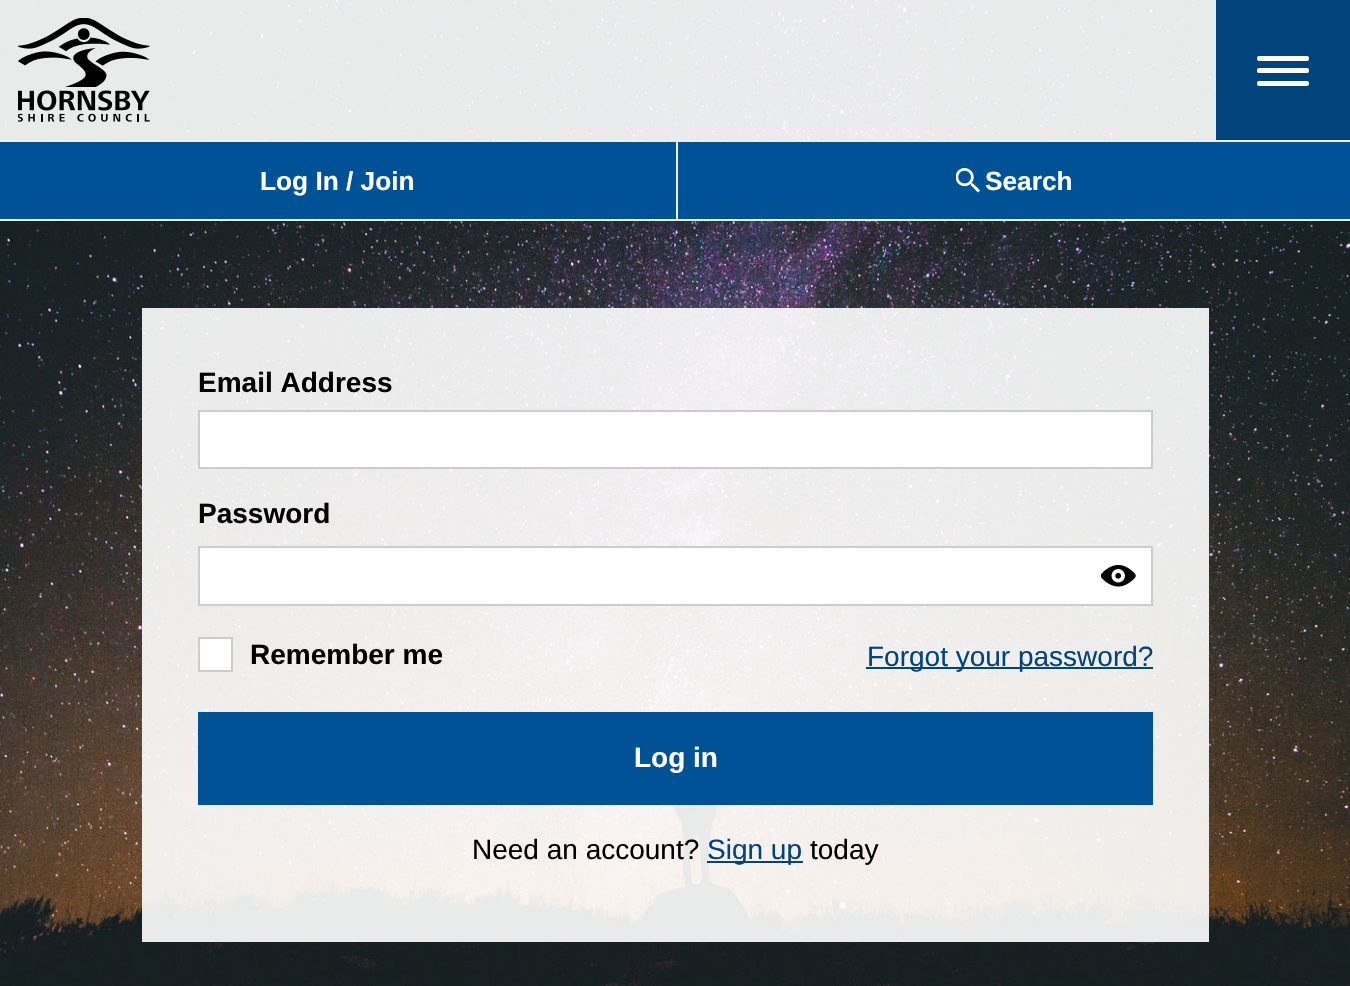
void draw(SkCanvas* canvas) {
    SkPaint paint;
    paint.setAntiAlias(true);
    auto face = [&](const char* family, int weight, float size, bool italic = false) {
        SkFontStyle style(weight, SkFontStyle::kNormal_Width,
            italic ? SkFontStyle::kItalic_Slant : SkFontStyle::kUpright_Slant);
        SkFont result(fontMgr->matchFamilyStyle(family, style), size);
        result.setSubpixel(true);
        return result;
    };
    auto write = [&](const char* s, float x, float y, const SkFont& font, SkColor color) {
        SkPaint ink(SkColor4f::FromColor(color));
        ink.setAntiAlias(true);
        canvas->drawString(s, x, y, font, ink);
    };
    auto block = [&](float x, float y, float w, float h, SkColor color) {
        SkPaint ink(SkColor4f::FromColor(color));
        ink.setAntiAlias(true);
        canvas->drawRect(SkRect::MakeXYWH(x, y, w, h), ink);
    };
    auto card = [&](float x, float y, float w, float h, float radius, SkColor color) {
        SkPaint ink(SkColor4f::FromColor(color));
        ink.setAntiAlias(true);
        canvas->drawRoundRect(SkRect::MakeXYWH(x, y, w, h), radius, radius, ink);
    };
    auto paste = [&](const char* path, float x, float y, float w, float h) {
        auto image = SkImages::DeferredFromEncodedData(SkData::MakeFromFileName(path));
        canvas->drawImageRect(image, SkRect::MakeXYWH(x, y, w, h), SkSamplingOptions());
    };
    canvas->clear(SK_ColorWHITE);
    paste("pic1.png", 0, 0, 1350, 986);
    block(0, 0, 1216, 140, SkColorSetARGB(230, 255, 255, 255));
    block(0, 219, 1350, 2, SkColorSetRGB(238, 238, 238));
    paste("pic2.png", 18, 18, 132, 104);
    block(1216, 0, 134, 140, SkColorSetRGB(0, 68, 124));
    card(1257, 56, 52, 5, 2, SK_ColorWHITE);
    card(1257, 68, 52, 5, 2, SK_ColorWHITE);
    card(1257, 81, 52, 5, 2, SK_ColorWHITE);
    block(0, 140, 1350, 2, SkColorSetRGB(238, 238, 238));
    block(0, 142, 676, 77, SkColorSetRGB(0, 82, 150));
    auto kFont1 = face("Liberation Sans", 700, 26.25f);
    write("Log In / Join", 260, 190, kFont1, SK_ColorWHITE);
    block(678, 142, 672, 77, SkColorSetRGB(0, 82, 150));
    block(676, 142, 2, 77, SkColorSetRGB(238, 238, 238));
    paste("pic3.png", 956, 168, 24, 25);
    write("Search", 985, 190, kFont1, SK_ColorWHITE);
    block(142, 308, 1067, 634, SkColorSetARGB(230, 255, 255, 255));
    auto kFont2 = face("Liberation Sans", 700, 28);
    write("Email Address", 198, 392, kFont2, SK_ColorBLACK);
    paint.setColor(SK_ColorWHITE);
    canvas->drawRect(SkRect::MakeXYWH(199, 411, 953, 57), paint);
    paint.setStyle(SkPaint::kStroke_Style);
    paint.setStrokeWidth(2);
    paint.setColor(SkColorSetRGB(204, 204, 204));
    canvas->drawRect(SkRect::MakeXYWH(199, 411, 953, 57), paint);
    write("Password", 198, 523, kFont2, SK_ColorBLACK);
    paint.setStyle(SkPaint::kFill_Style);
    paint.setColor(SK_ColorWHITE);
    canvas->drawRect(SkRect::MakeXYWH(199, 547, 953, 58), paint);
    paint.setStyle(SkPaint::kStroke_Style);
    paint.setColor(SkColorSetRGB(204, 204, 204));
    canvas->drawRect(SkRect::MakeXYWH(199, 547, 953, 58), paint);
    paste("pic4.png", 1101, 565, 35, 22);
    paint.setStyle(SkPaint::kFill_Style);
    paint.setColor(SK_ColorWHITE);
    canvas->drawRect(SkRect::MakeXYWH(199, 638, 33, 33), paint);
    paint.setStyle(SkPaint::kStroke_Style);
    paint.setColor(SkColorSetRGB(204, 204, 204));
    canvas->drawRect(SkRect::MakeXYWH(199, 638, 33, 33), paint);
    write("Remember me", 250, 664, kFont2, SK_ColorBLACK);
    block(866, 667, 287, 2, SkColorSetRGB(0, 68, 124));
    auto kFont3 = face("Liberation Sans", 400, 28);
    write("Forgot your password?", 867, 666, kFont3, SkColorSetRGB(0, 68, 124));
    block(198, 712, 955, 93, SkColorSetRGB(0, 82, 150));
    write("Log in", 634, 767, kFont2, SK_ColorWHITE);
    write("Need an account?", 472, 859, kFont3, SK_ColorBLACK);
    block(707, 861, 96, 2, SkColorSetRGB(0, 68, 124));
    write("Sign up", 707, 859, kFont3, SkColorSetRGB(0, 68, 124));
    write("today", 810, 859, kFont3, SK_ColorBLACK);
}
